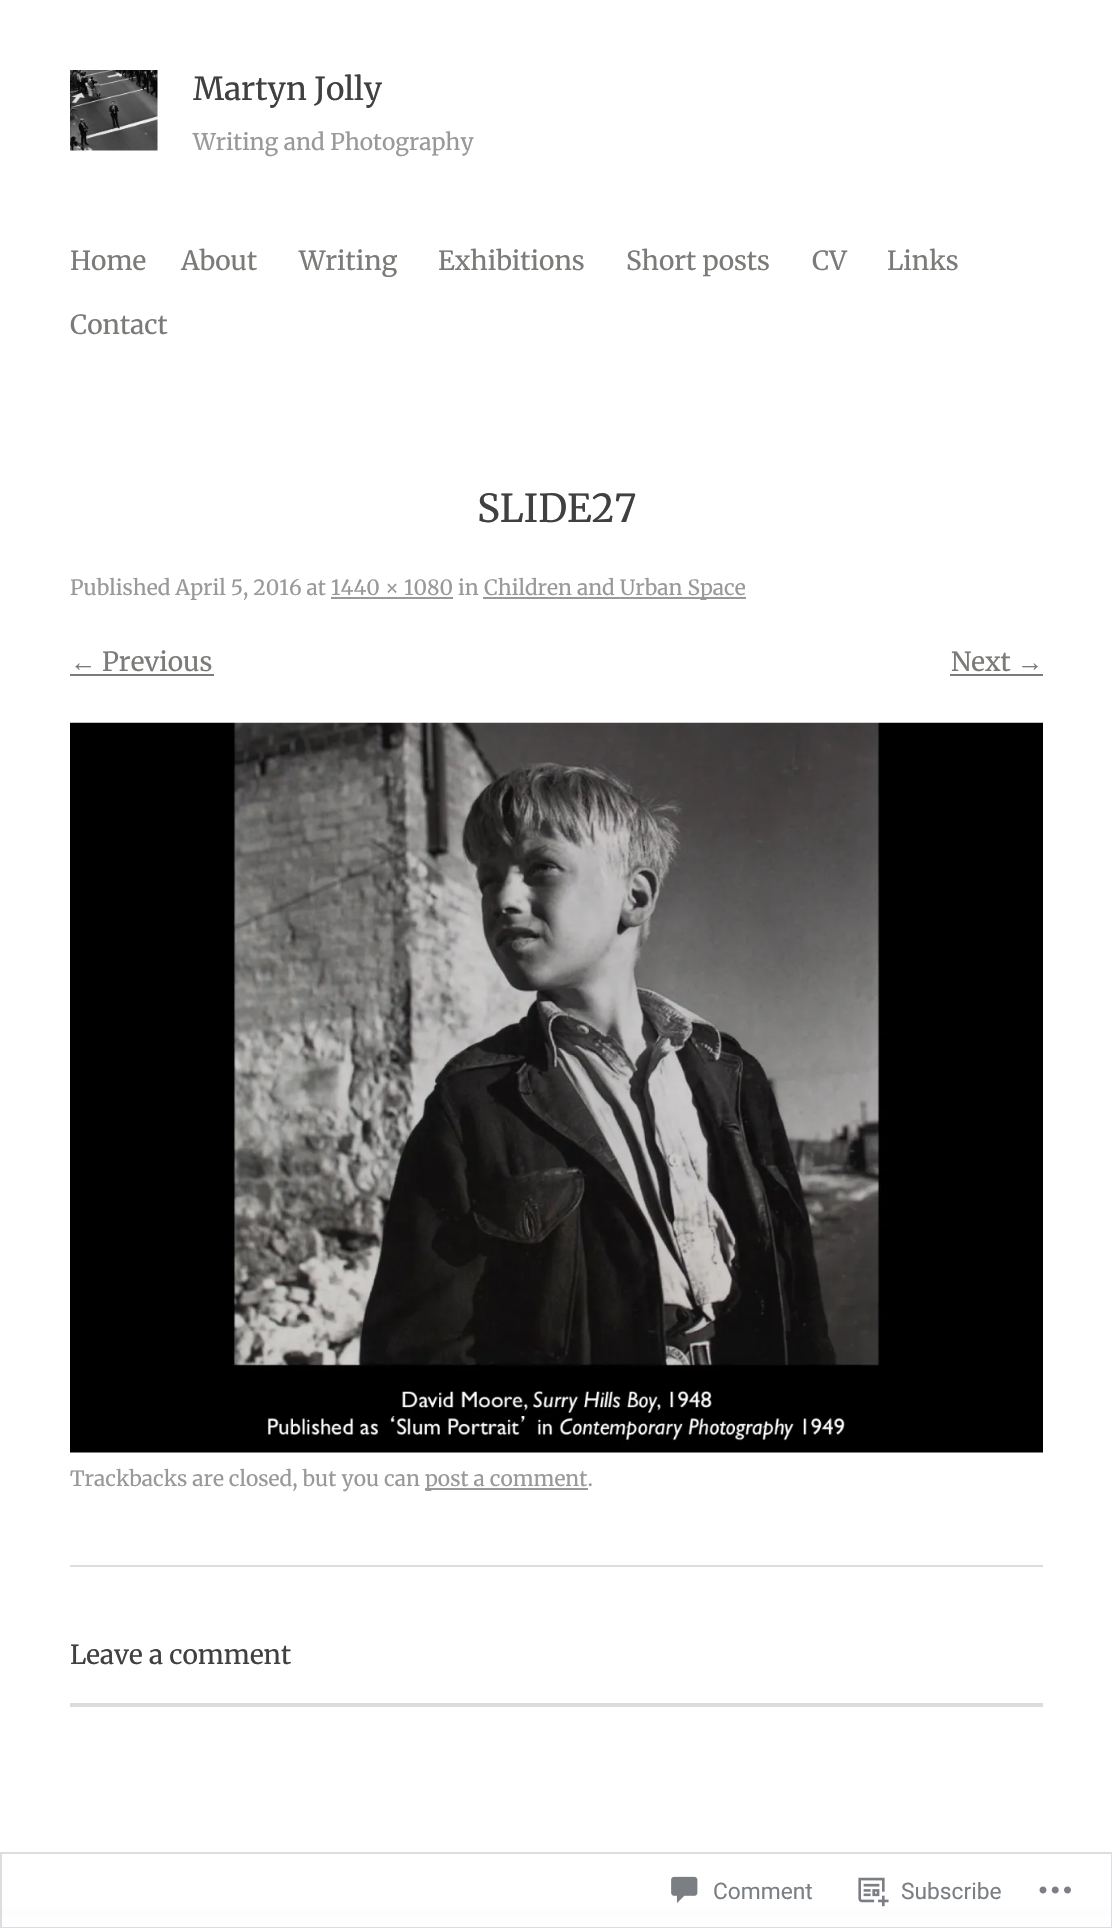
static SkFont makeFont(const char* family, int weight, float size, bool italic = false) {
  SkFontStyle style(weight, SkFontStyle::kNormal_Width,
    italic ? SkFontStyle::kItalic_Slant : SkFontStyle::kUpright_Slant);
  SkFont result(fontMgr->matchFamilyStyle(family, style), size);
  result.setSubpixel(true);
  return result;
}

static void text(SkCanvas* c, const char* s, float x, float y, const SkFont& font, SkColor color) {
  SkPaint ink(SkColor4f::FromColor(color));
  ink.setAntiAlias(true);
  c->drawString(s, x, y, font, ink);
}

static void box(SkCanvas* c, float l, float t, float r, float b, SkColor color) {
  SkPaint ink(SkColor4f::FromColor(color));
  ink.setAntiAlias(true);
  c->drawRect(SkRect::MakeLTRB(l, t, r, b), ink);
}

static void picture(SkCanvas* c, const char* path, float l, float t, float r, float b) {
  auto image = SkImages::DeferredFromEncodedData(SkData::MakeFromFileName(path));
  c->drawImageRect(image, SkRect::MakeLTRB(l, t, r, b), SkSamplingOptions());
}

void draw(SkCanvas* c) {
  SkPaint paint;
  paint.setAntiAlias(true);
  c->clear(0xffffffff);
  picture(c, "img_01.png", 2, 1862, 1111, 1927);
  picture(c, "img_02.png", 70, 70, 158, 151);
  SkFont face1 = makeFont("Merriweather", 400, 31.5f);
  text(c, "Martyn Jolly", 193, 100, face1, 0xff404040);
  SkFont face2 = makeFont("Merriweather", 400, 22.75f);
  text(c, "Writing and Photography", 193, 150, face2, 0xff999999);
  SkFont face3 = makeFont("Merriweather", 400, 26.25f);
  text(c, "Home", 70, 270, face3, 0xff7b7b79);
  text(c, "About", 181, 270, face3, 0xff7b7b79);
  text(c, "Writing", 299, 270, face3, 0xff7b7b79);
  text(c, "Exhibitions", 438, 270, face3, 0xff7b7b79);
  text(c, "Short posts", 626, 270, face3, 0xff7b7b79);
  text(c, "CV", 812, 270, face3, 0xff7b7b79);
  text(c, "Links", 887, 270, face3, 0xff7b7b79);
  text(c, "Contact", 70, 334, face3, 0xff7b7b79);
  box(c, 70, 1565, 1043, 1567, 0xffdddddd);
  SkFont face4 = makeFont("Merriweather", 400, 38.5f);
  text(c, "SLIDE27", 477, 522, face4, 0xff404040);
  SkFont face5 = makeFont("Merriweather", 400, 21);
  text(c, "Published April 5, 2016 at 1440 × 1080 in", 70, 595, face5, 0xff999999);
  box(c, 483, 597, 746, 599, 0xff999999);
  text(c, "Children and Urban Space", 484, 595, face5, 0xff999999);
  box(c, 331, 597, 453, 599, 0xff999999);
  SkFont face6 = makeFont("Liberation Serif", 400, 26.25f);
  text(c, "←", 70, 671, face6, 0xff7b7b79);
  box(c, 70, 674, 214, 676, 0xff7b7b79);
  text(c, "Previous", 102, 671, face3, 0xff7b7b79);
  text(c, "Next", 951, 671, face3, 0xff7b7b79);
  text(c, "→", 1017, 671, face6, 0xff7b7b79);
  box(c, 950, 674, 1043, 676, 0xff7b7b79);
  picture(c, "img_03.png", 70, 722, 1043, 1453);
  text(c, "Trackbacks are closed, but you can", 70, 1486, face5, 0xff999999);
  box(c, 425, 1488, 588, 1490, 0xff999999);
  text(c, "post a comment.", 425, 1486, face5, 0xff999999);
  text(c, "Leave a comment", 70, 1664, face3, 0xff404040);
  box(c, 70, 1703, 1043, 1707, 0xffdcdcde);
  box(c, 2, 1862, 1111, 1907, 0xfaffffff);
  paint.setStyle(SkPaint::kStroke_Style);
  paint.setStrokeWidth(2);
  paint.setColor(0xffdddddf);
  c->drawRect(SkRect::MakeLTRB(1, 1853, 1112, 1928), paint);
  picture(c, "img_04.png", 671, 1876, 698, 1903);
  SkFont face7 = makeFont("Roboto", 400, 22.75f);
  text(c, "Comment", 713, 1899, face7, 0xff7b7f84);
  picture(c, "img_05.png", 858, 1877, 889, 1907);
  text(c, "Subscribe", 901, 1899, face7, 0xff7b7f84);
  picture(c, "img_06.png", 1039, 1886, 1071, 1894);
}
